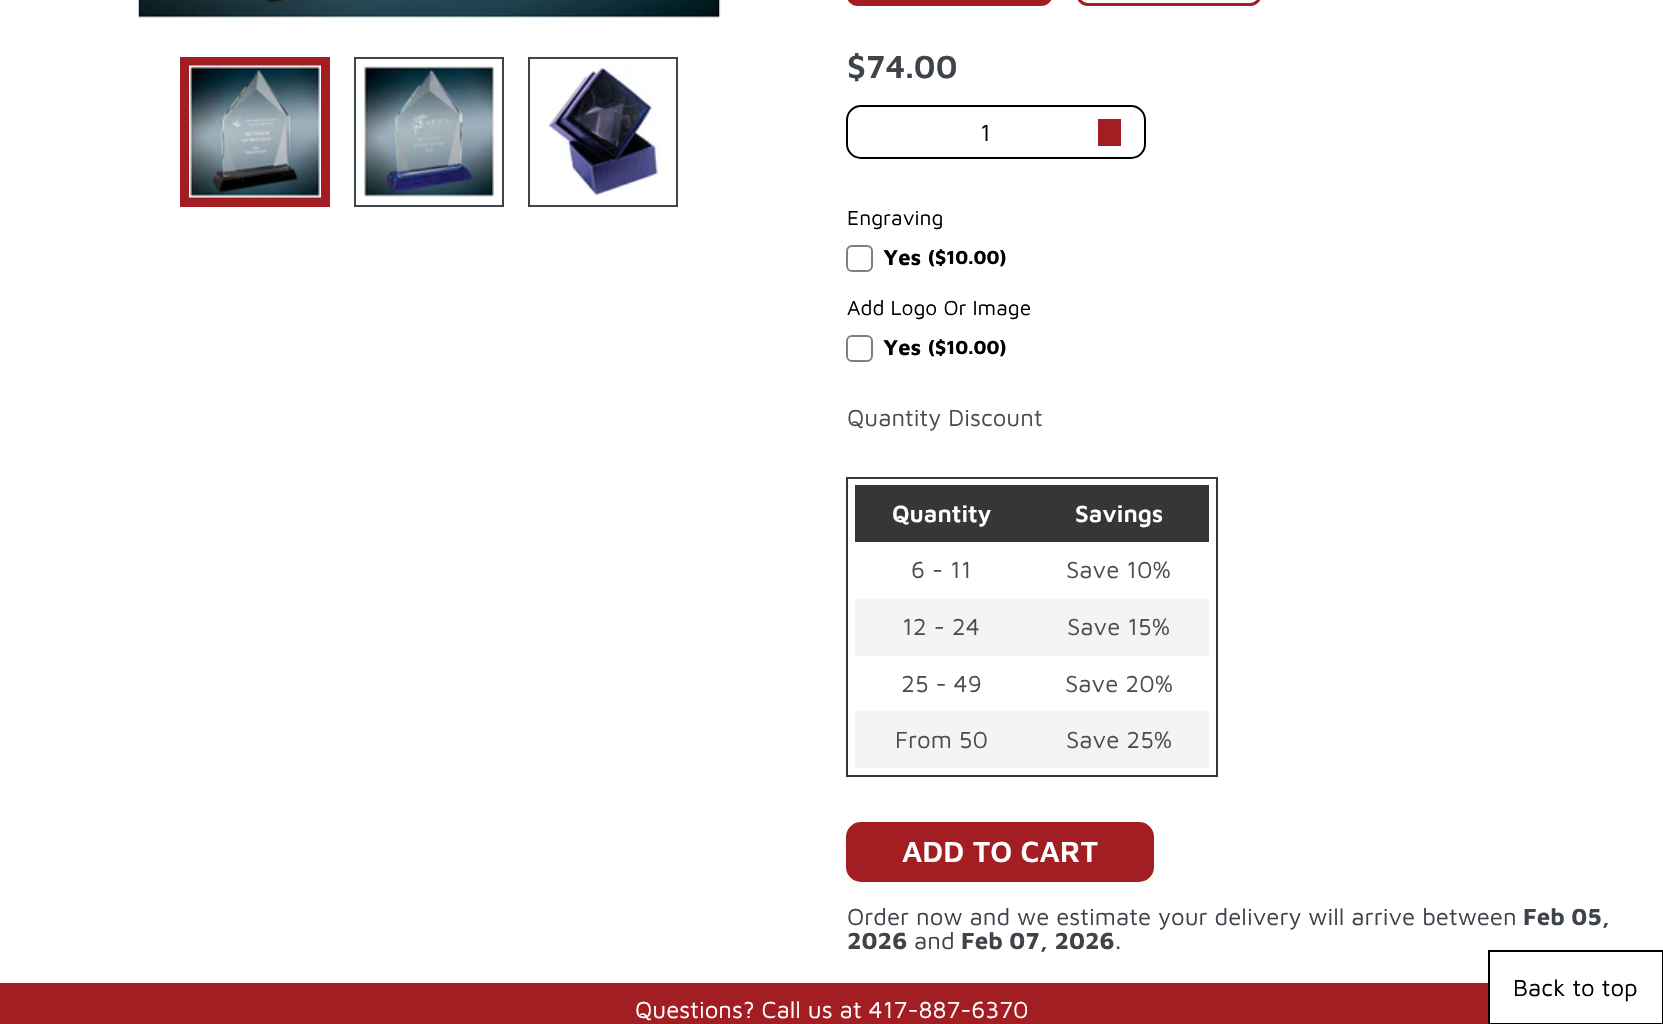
static SkFont makeFont(const char* family, int weight, float size, bool italic = false) {
  SkFontStyle style(weight, SkFontStyle::kNormal_Width,
    italic ? SkFontStyle::kItalic_Slant : SkFontStyle::kUpright_Slant);
  SkFont result(fontMgr->matchFamilyStyle(family, style), size);
  result.setSubpixel(true);
  return result;
}

static void text(SkCanvas* c, const char* s, float x, float y, const SkFont& font, SkColor color) {
  SkPaint ink(SkColor4f::FromColor(color));
  ink.setAntiAlias(true);
  c->drawString(s, x, y, font, ink);
}

static void box(SkCanvas* c, float l, float t, float r, float b, SkColor color) {
  SkPaint ink(SkColor4f::FromColor(color));
  ink.setAntiAlias(true);
  c->drawRect(SkRect::MakeLTRB(l, t, r, b), ink);
}

static void picture(SkCanvas* c, const char* path, float l, float t, float r, float b) {
  auto image = SkImages::DeferredFromEncodedData(SkData::MakeFromFileName(path));
  c->drawImageRect(image, SkRect::MakeLTRB(l, t, r, b), SkSamplingOptions());
}

void draw(SkCanvas* c) {
  SkPaint paint;
  paint.setAntiAlias(true);
  c->clear(0xffffffff);
  picture(c, "img_01.png", 137, 0, 721, 19);
  box(c, 180, 57, 330, 207, 0xffa21e23);
  picture(c, "img_02.png", 189, 65, 321, 198);
  paint.setStyle(SkPaint::kStroke_Style);
  paint.setStrokeWidth(2);
  paint.setColor(0xff3f444b);
  c->drawRect(SkRect::MakeLTRB(355, 58, 503, 206), paint);
  picture(c, "img_03.png", 363, 66, 495, 197);
  c->drawRect(SkRect::MakeLTRB(529, 58, 677, 206), paint);
  picture(c, "img_04.png", 548, 65, 666, 195);
  paint.setStyle(SkPaint::kFill_Style);
  paint.setColor(0xffa21e23);
  c->drawRoundRect(SkRect::MakeLTRB(847.5f, -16.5f, 1051.5f, 4.5f), 13.5f, 13.5f, paint);
  paint.setStyle(SkPaint::kStroke_Style);
  paint.setStrokeWidth(3);
  c->drawRoundRect(SkRect::MakeLTRB(847.5f, -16.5f, 1051.5f, 4.5f), 13.5f, 13.5f, paint);
  c->drawRoundRect(SkRect::MakeLTRB(1077.5f, -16.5f, 1260.5f, 4.5f), 13.5f, 13.5f, paint);
  SkFont face1 = makeFont("Maven Pro", 600, 33);
  text(c, "$74.00", 847, 78, face1, 0xff3f444b);
  paint.setStrokeWidth(2);
  paint.setColor(0xff000000);
  c->drawRoundRect(SkRect::MakeLTRB(847, 106, 1145, 158), 14, 14, paint);
  SkFont face2 = makeFont("Maven Pro", 400, 24);
  text(c, "1", 980, 141, face2, 0xff000000);
  box(c, 1098, 119, 1121, 146, 0xffa21e23);
  SkFont face3 = makeFont("Maven Pro", 400, 21);
  text(c, "Engraving", 847, 225, face3, 0xff000000);
  paint.setColor(0xff808080);
  c->drawRoundRect(SkRect::MakeLTRB(847, 246, 872, 271), 5, 5, paint);
  SkFont face4 = makeFont("Maven Pro", 700, 22);
  text(c, "Yes", 883, 265, face4, 0xff000000);
  SkFont face5 = makeFont("Maven Pro", 700, 19.5f);
  text(c, "($10.00)", 928, 264, face5, 0xff000000);
  text(c, "Add Logo Or Image", 847, 315, face3, 0xff000000);
  c->drawRoundRect(SkRect::MakeLTRB(847, 336, 872, 361), 5, 5, paint);
  text(c, "Yes", 883, 355, face4, 0xff000000);
  text(c, "($10.00)", 928, 354, face5, 0xff000000);
  text(c, "Quantity Discount", 847, 426, face2, 0xff4d4d4d);
  paint.setColor(0xff363636);
  c->drawRect(SkRect::MakeLTRB(847, 478, 1217, 776), paint);
  box(c, 855, 485, 1209, 542, 0xff363636);
  SkFont face6 = makeFont("Maven Pro", 600, 24);
  text(c, "Quantity", 892, 522, face6, 0xffffffff);
  text(c, "Savings", 1075, 522, face6, 0xffffffff);
  text(c, "6 - 11", 911, 578, face2, 0xff4d4d4d);
  text(c, "Save 10%", 1066, 578, face2, 0xff4d4d4d);
  box(c, 855, 599, 1209, 656, 0xfff4f4f4);
  text(c, "12 - 24", 902, 635, face2, 0xff4d4d4d);
  text(c, "Save 15%", 1067, 635, face2, 0xff4d4d4d);
  text(c, "25 - 49", 901, 692, face2, 0xff4d4d4d);
  text(c, "Save 20%", 1065, 692, face2, 0xff4d4d4d);
  box(c, 855, 711, 1209, 768, 0xfff4f4f4);
  text(c, "From 50", 895, 748, face2, 0xff4d4d4d);
  text(c, "Save 25%", 1066, 748, face2, 0xff4d4d4d);
  paint.setStyle(SkPaint::kFill_Style);
  paint.setColor(0xffa21e23);
  c->drawRoundRect(SkRect::MakeLTRB(847.5f, 823.5f, 1152.5f, 880.5f), 13.5f, 13.5f, paint);
  paint.setStyle(SkPaint::kStroke_Style);
  paint.setStrokeWidth(3);
  c->drawRoundRect(SkRect::MakeLTRB(847.5f, 823.5f, 1152.5f, 880.5f), 13.5f, 13.5f, paint);
  SkFont face7 = makeFont("Maven Pro", 600, 30);
  text(c, "ADD TO CART", 902, 862, face7, 0xffffffff);
  text(c, "Order now and we estimate your delivery will arrive between", 847, 925, face2, 0xff3f444b);
  SkFont face8 = makeFont("Maven Pro", 700, 24);
  text(c, "Feb 05,", 1523, 925, face8, 0xff3f444b);
  text(c, "2026", 847, 949, face8, 0xff3f444b);
  text(c, "and", 914, 949, face2, 0xff3f444b);
  text(c, "Feb 07, 2026", 961, 949, face8, 0xff3f444b);
  text(c, ".", 1115, 949, face2, 0xff3f444b);
  paint.setStrokeWidth(2);
  paint.setColor(0xff000000);
  c->drawRect(SkRect::MakeLTRB(1489, 951, 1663, 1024), paint);
  text(c, "Back to top", 1513, 996, face2, 0xff000000);
  box(c, 0, 983, 1488, 1024, 0xffa21e23);
  text(c, "Questions? Call us at 417-887-6370", 635, 1018, face2, 0xffffffff);
}
